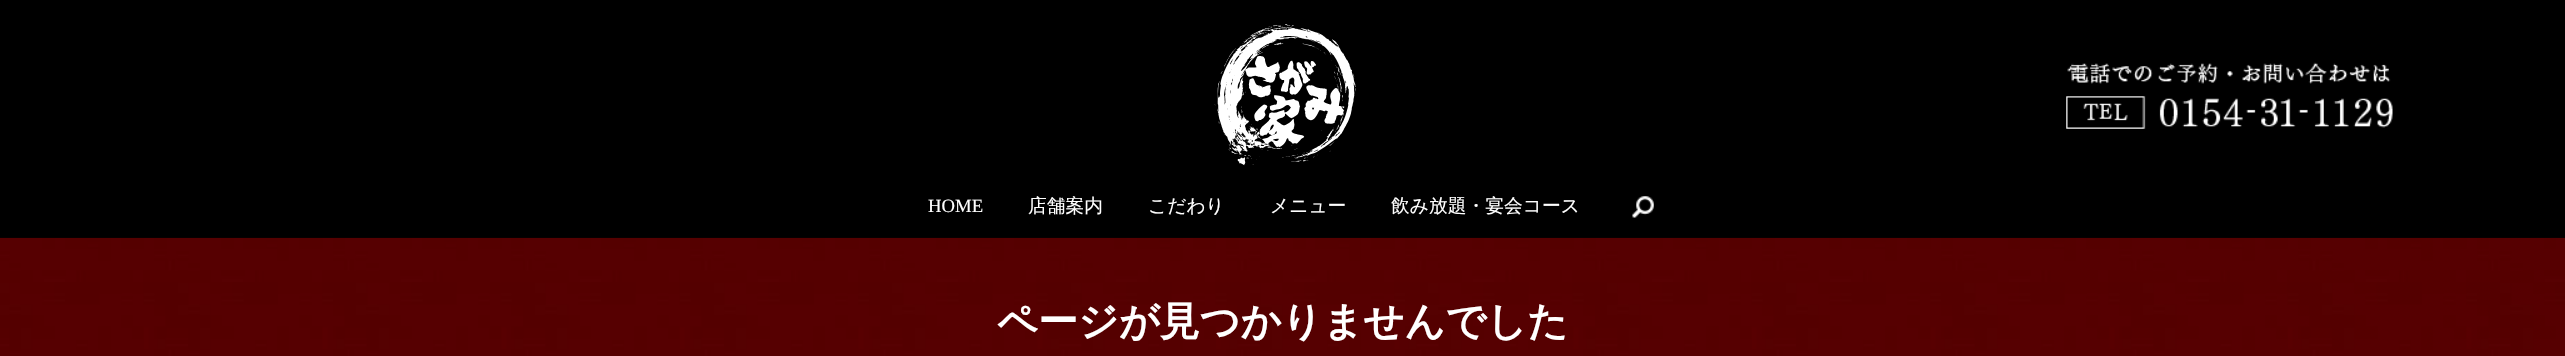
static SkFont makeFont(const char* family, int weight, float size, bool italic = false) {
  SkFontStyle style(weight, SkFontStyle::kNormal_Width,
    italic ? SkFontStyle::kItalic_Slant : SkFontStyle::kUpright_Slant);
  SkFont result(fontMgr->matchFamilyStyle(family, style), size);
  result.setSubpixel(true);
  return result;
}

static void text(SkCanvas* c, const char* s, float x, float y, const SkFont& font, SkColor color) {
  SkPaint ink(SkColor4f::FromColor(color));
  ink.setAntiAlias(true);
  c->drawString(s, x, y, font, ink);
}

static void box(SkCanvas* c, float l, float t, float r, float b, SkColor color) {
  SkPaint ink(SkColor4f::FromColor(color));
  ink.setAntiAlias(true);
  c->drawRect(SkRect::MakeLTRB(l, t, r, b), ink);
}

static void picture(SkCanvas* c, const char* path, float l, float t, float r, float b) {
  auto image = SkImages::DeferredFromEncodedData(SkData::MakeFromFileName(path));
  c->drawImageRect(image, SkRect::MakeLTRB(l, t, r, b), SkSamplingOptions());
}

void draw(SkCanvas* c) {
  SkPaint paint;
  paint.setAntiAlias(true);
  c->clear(0xff000000);
  picture(c, "img_04.png", 0, 237, 2565, 356);
  box(c, 0, 237, 2565, 238, 0xb3000000);
  picture(c, "img_01.png", 1214, 24, 1356, 166);
  picture(c, "img_02.png", 2066, 62, 2393, 129);
  SkFont face1 = makeFont("Liberation Serif", 400, 18.75f);
  text(c, "HOME", 928, 212, face1, 0xffffffff);
  SkFont face2 = makeFont("WenQuanYi Zen Hei", 500, 18.75f);
  text(c, "店舗案内", 1028, 212, face2, 0xffffffff);
  text(c, "こだわり", 1148, 212, face2, 0xffffffff);
  text(c, "メニュー", 1270, 212, face2, 0xffffffff);
  text(c, "飲み放題・宴会コース", 1391, 212, face2, 0xffffffff);
  picture(c, "img_03.png", 1632, 196, 1654, 218);
  SkFont face3 = makeFont("WenQuanYi Zen Hei", 700, 40);
  text(c, "ページが見つかりませんでした", 997, 335, face3, 0xffffffff);
}
